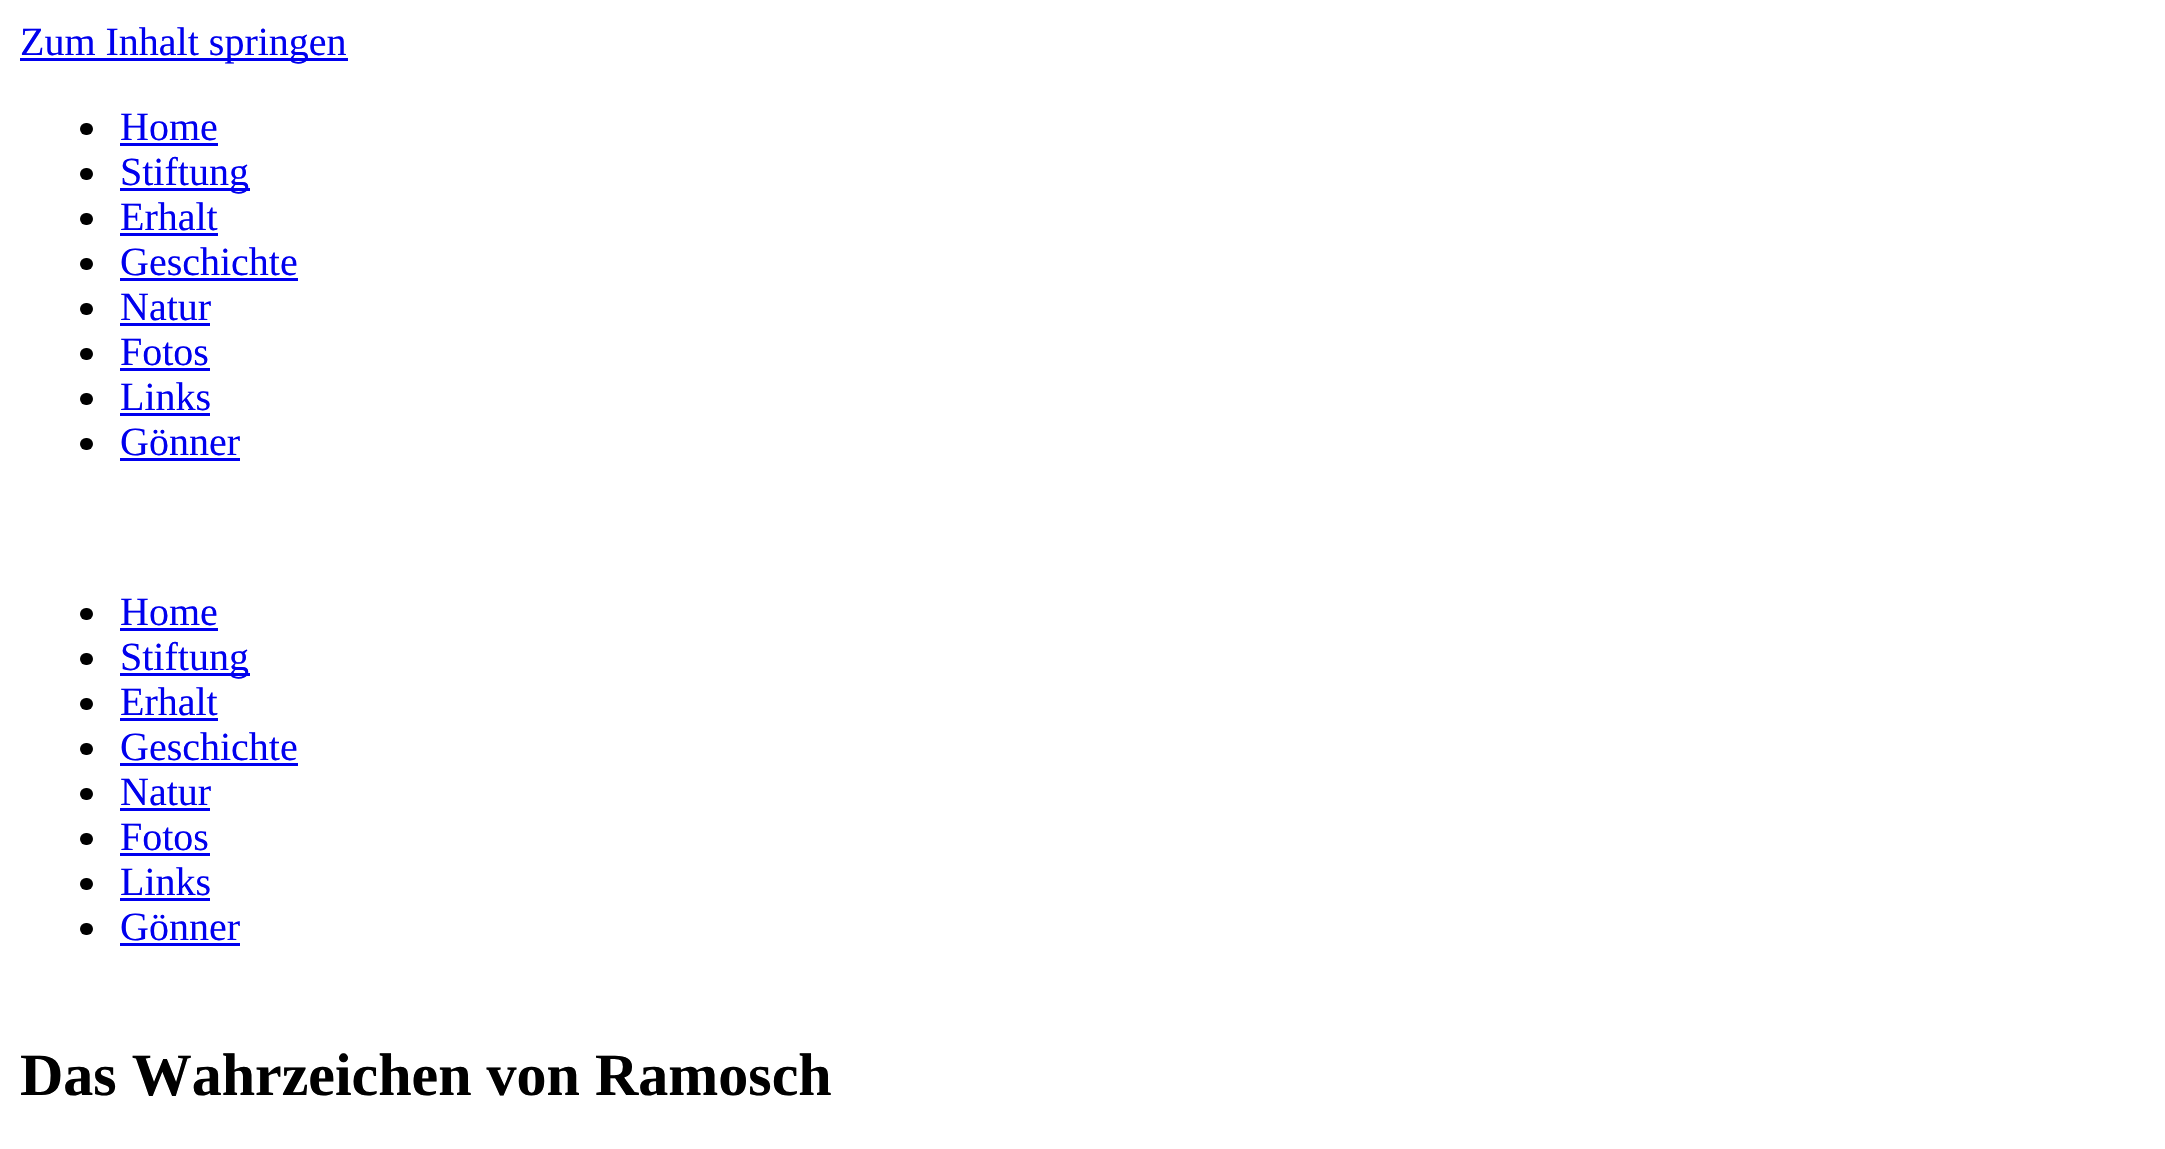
static SkFont makeFont(const char* family, int weight, float size, bool italic = false) {
  SkFontStyle style(weight, SkFontStyle::kNormal_Width,
    italic ? SkFontStyle::kItalic_Slant : SkFontStyle::kUpright_Slant);
  SkFont result(fontMgr->matchFamilyStyle(family, style), size);
  result.setSubpixel(true);
  return result;
}

static void text(SkCanvas* c, const char* s, float x, float y, const SkFont& font, SkColor color) {
  SkPaint ink(SkColor4f::FromColor(color));
  ink.setAntiAlias(true);
  c->drawString(s, x, y, font, ink);
}

static void box(SkCanvas* c, float l, float t, float r, float b, SkColor color) {
  SkPaint ink(SkColor4f::FromColor(color));
  ink.setAntiAlias(true);
  c->drawRect(SkRect::MakeLTRB(l, t, r, b), ink);
}

static void roundBox(SkCanvas* c, float l, float t, float r, float b, float radius, SkColor color) {
  SkPaint ink(SkColor4f::FromColor(color));
  ink.setAntiAlias(true);
  c->drawRoundRect(SkRect::MakeLTRB(l, t, r, b), radius, radius, ink);
}

void draw(SkCanvas* c) {
  SkPaint paint;
  paint.setAntiAlias(true);
  c->clear(0xffffffff);
  box(c, 20, 58, 348, 61, 0xff0000ee);
  SkFont face1 = makeFont("Liberation Serif", 400, 40);
  text(c, "Zum Inhalt springen", 20, 55, face1, 0xff0000ee);
  roundBox(c, 80, 123, 93, 135, 6, 0xff000000);
  text(c, "Home", 120, 140, face1, 0xff0000ee);
  box(c, 120, 143, 218, 146, 0xff0000ee);
  roundBox(c, 80, 168, 93, 180, 6, 0xff000000);
  box(c, 120, 188, 250, 191, 0xff0000ee);
  text(c, "Stiftung", 120, 185, face1, 0xff0000ee);
  roundBox(c, 80, 213, 93, 225, 6, 0xff000000);
  text(c, "Erhalt", 120, 230, face1, 0xff0000ee);
  box(c, 120, 233, 218, 236, 0xff0000ee);
  roundBox(c, 80, 258, 93, 270, 6, 0xff000000);
  text(c, "Geschichte", 120, 275, face1, 0xff0000ee);
  box(c, 120, 278, 298, 281, 0xff0000ee);
  roundBox(c, 80, 303, 93, 315, 6, 0xff000000);
  text(c, "Natur", 120, 320, face1, 0xff0000ee);
  box(c, 120, 323, 210, 326, 0xff0000ee);
  roundBox(c, 80, 348, 93, 360, 6, 0xff000000);
  text(c, "Fotos", 120, 365, face1, 0xff0000ee);
  box(c, 120, 368, 210, 371, 0xff0000ee);
  roundBox(c, 80, 393, 93, 405, 6, 0xff000000);
  text(c, "Links", 120, 410, face1, 0xff0000ee);
  box(c, 120, 413, 210, 416, 0xff0000ee);
  roundBox(c, 80, 438, 93, 450, 6, 0xff000000);
  text(c, "Gönner", 120, 455, face1, 0xff0000ee);
  box(c, 120, 458, 240, 461, 0xff0000ee);
  roundBox(c, 80, 608, 93, 620, 6, 0xff000000);
  text(c, "Home", 120, 625, face1, 0xff0000ee);
  box(c, 120, 628, 218, 631, 0xff0000ee);
  roundBox(c, 80, 653, 93, 665, 6, 0xff000000);
  box(c, 120, 673, 250, 676, 0xff0000ee);
  text(c, "Stiftung", 120, 670, face1, 0xff0000ee);
  roundBox(c, 80, 698, 93, 710, 6, 0xff000000);
  text(c, "Erhalt", 120, 715, face1, 0xff0000ee);
  box(c, 120, 718, 218, 721, 0xff0000ee);
  roundBox(c, 80, 743, 93, 755, 6, 0xff000000);
  text(c, "Geschichte", 120, 760, face1, 0xff0000ee);
  box(c, 120, 763, 298, 766, 0xff0000ee);
  roundBox(c, 80, 788, 93, 800, 6, 0xff000000);
  text(c, "Natur", 120, 805, face1, 0xff0000ee);
  box(c, 120, 808, 210, 811, 0xff0000ee);
  roundBox(c, 80, 833, 93, 845, 6, 0xff000000);
  text(c, "Fotos", 120, 850, face1, 0xff0000ee);
  box(c, 120, 853, 210, 856, 0xff0000ee);
  roundBox(c, 80, 878, 93, 890, 6, 0xff000000);
  text(c, "Links", 120, 895, face1, 0xff0000ee);
  box(c, 120, 898, 210, 901, 0xff0000ee);
  roundBox(c, 80, 923, 93, 935, 6, 0xff000000);
  text(c, "Gönner", 120, 940, face1, 0xff0000ee);
  box(c, 120, 943, 240, 946, 0xff0000ee);
  SkFont face2 = makeFont("Liberation Serif", 700, 60);
  text(c, "Das Wahrzeichen von Ramosch", 20, 1095, face2, 0xff000000);
}
